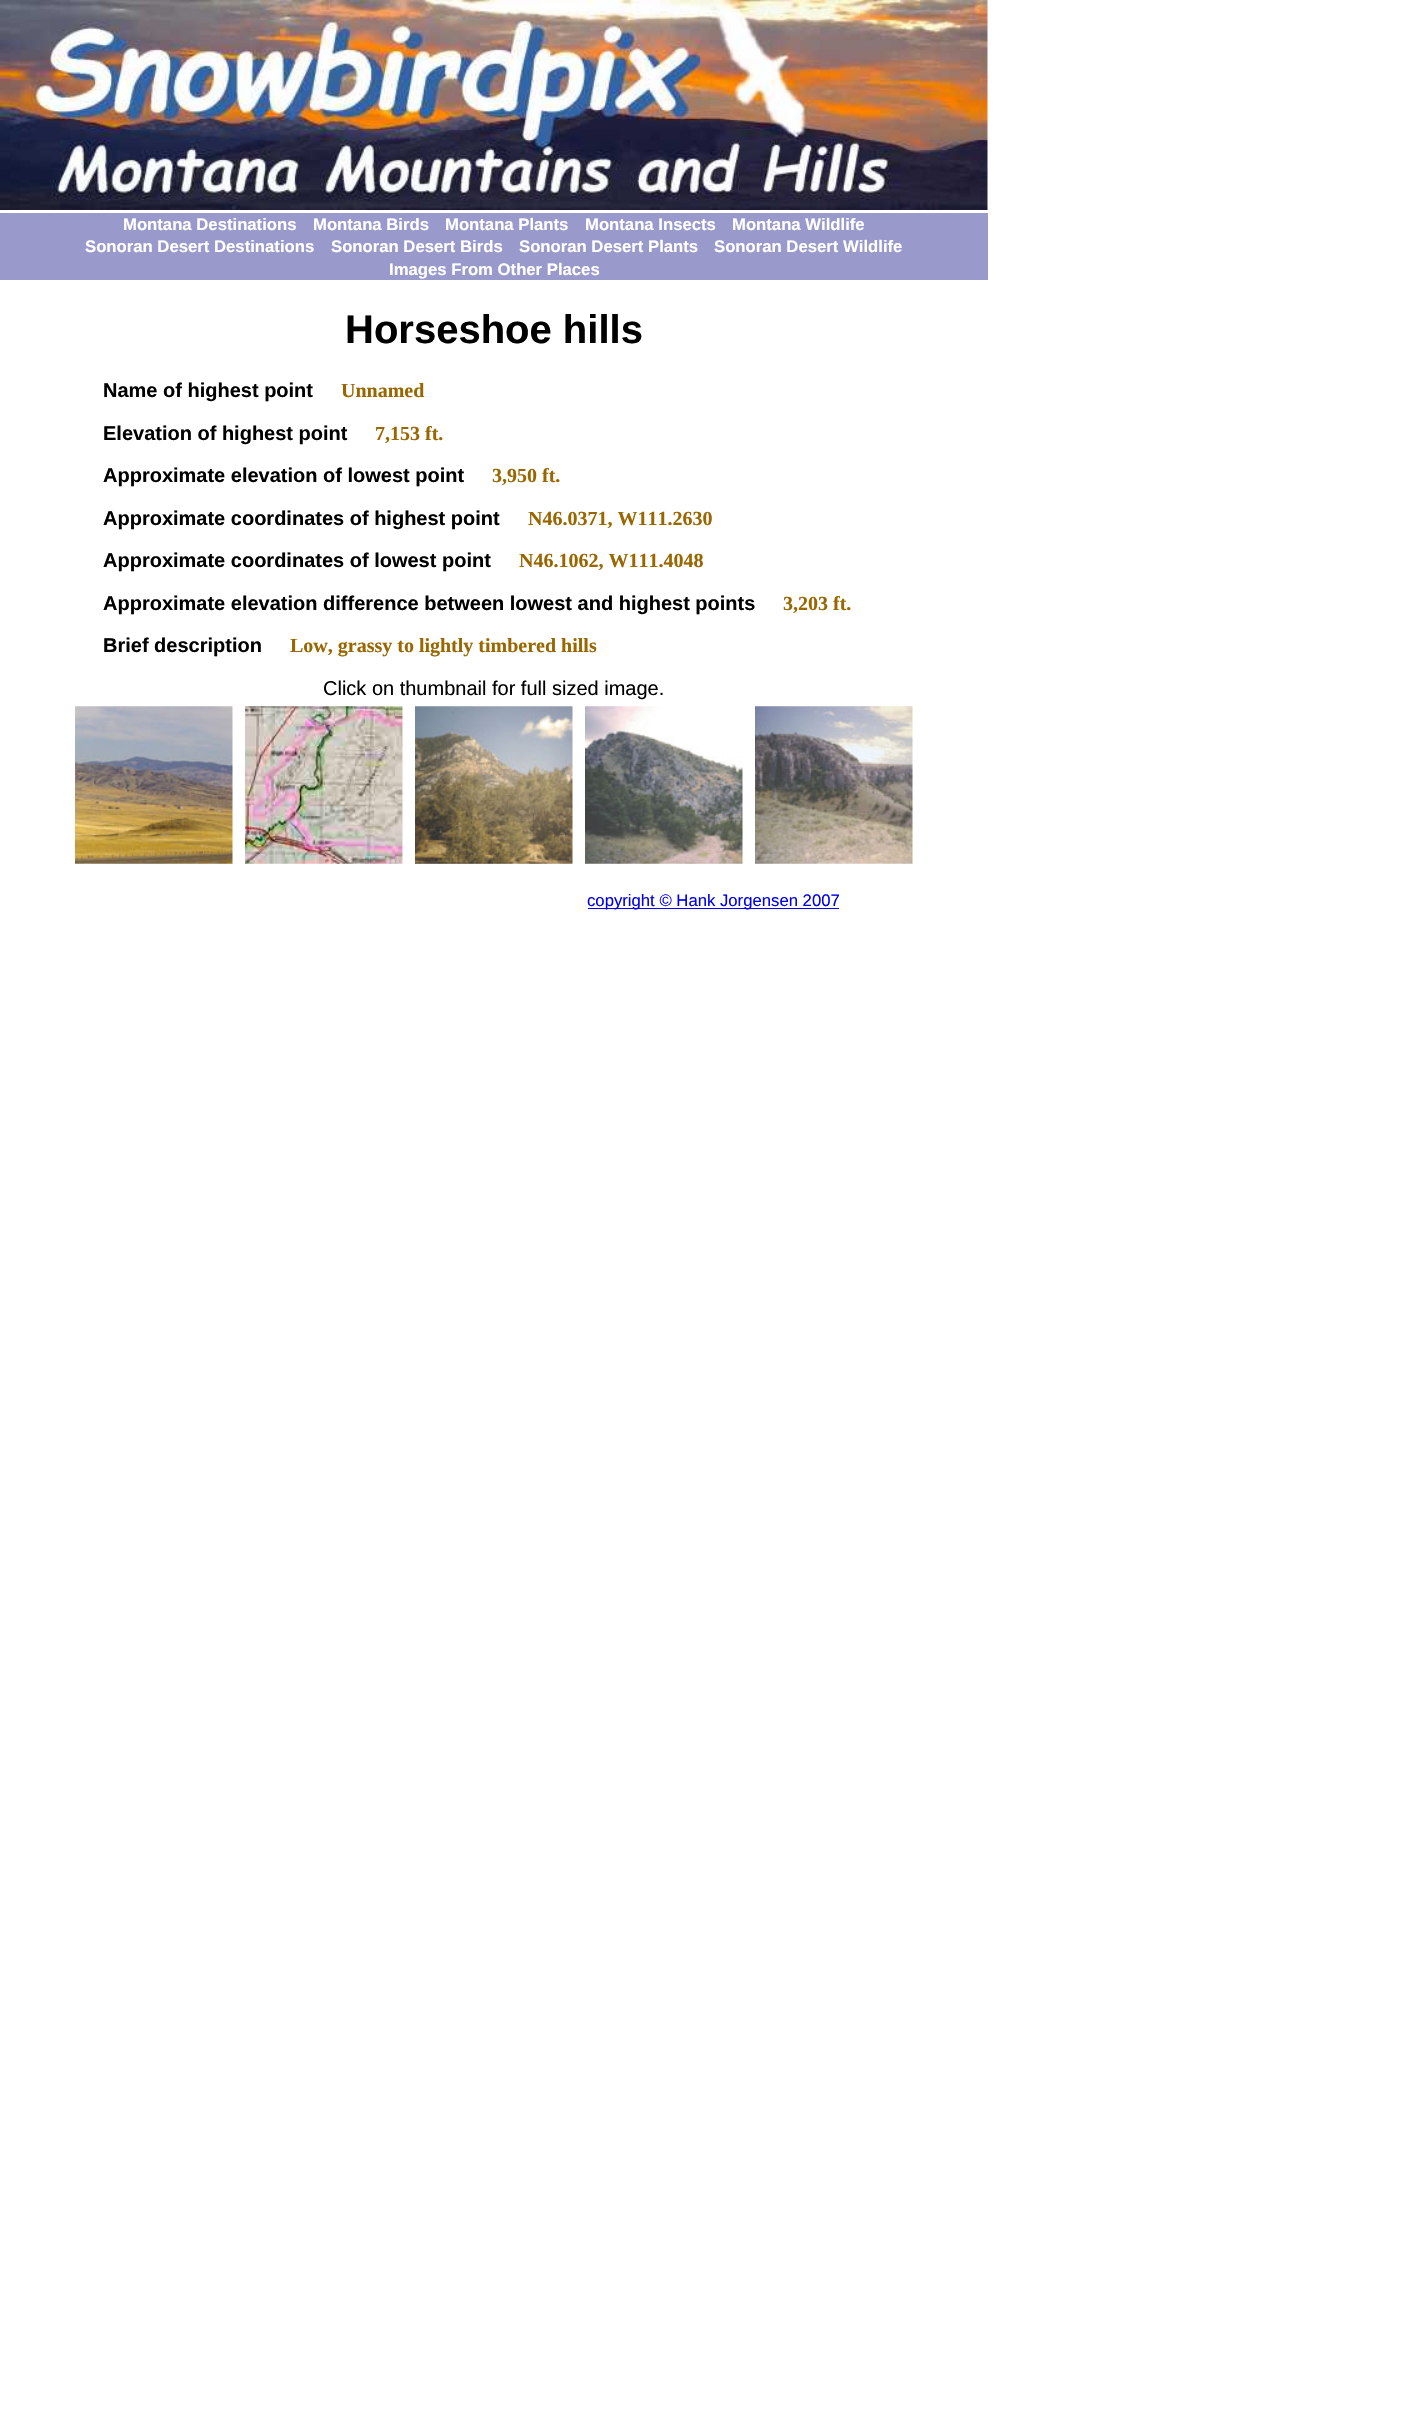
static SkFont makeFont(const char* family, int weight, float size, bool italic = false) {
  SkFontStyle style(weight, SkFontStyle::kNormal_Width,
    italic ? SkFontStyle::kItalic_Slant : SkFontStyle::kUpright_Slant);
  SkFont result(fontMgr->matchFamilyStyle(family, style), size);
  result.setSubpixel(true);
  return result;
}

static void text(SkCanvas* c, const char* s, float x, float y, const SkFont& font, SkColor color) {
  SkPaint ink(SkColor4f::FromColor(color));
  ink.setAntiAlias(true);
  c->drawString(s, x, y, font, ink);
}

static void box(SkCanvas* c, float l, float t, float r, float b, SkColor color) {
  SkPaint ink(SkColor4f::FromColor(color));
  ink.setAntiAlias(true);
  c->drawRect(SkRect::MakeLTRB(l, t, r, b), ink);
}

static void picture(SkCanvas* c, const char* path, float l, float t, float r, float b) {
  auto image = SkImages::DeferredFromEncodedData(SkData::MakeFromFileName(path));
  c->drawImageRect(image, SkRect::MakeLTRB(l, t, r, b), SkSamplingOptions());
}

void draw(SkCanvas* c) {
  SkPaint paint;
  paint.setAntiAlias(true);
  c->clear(0xffffffff);
  picture(c, "img_01.png", 0, 0, 988, 210);
  box(c, 0, 213, 988, 280, 0xff9999cc);
  SkFont face1 = makeFont("Liberation Sans", 700, 16.7f);
  text(c, "Montana Destinations", 123, 230, face1, 0xffffffff);
  text(c, "Montana Birds", 313, 230, face1, 0xffffffff);
  text(c, "Montana Plants", 445, 230, face1, 0xffffffff);
  text(c, "Montana Insects", 585, 230, face1, 0xffffffff);
  text(c, "Montana Wildlife", 732, 230, face1, 0xffffffff);
  text(c, "Sonoran Desert Destinations", 85, 252, face1, 0xffffffff);
  text(c, "Sonoran Desert Birds", 331, 252, face1, 0xffffffff);
  text(c, "Sonoran Desert Plants", 519, 252, face1, 0xffffffff);
  text(c, "Sonoran Desert Wildlife", 714, 252, face1, 0xffffffff);
  text(c, "Images From Other Places", 389, 275, face1, 0xffffffff);
  SkFont face2 = makeFont("Liberation Sans", 700, 40);
  text(c, "Horseshoe hills", 345, 343, face2, 0xff000000);
  SkFont face3 = makeFont("Liberation Sans", 700, 20);
  text(c, "Name of highest point", 103, 397, face3, 0xff000000);
  SkFont face4 = makeFont("Liberation Serif", 700, 20);
  text(c, "Unnamed", 341, 397, face4, 0xff996600);
  text(c, "Elevation of highest point", 103, 440, face3, 0xff000000);
  text(c, "7,153 ft.", 375, 440, face4, 0xff996600);
  text(c, "Approximate elevation of lowest point", 103, 482, face3, 0xff000000);
  text(c, "3,950 ft.", 492, 482, face4, 0xff996600);
  text(c, "Approximate coordinates of highest point", 103, 525, face3, 0xff000000);
  text(c, "N46.0371, W111.2630", 528, 525, face4, 0xff996600);
  text(c, "Approximate coordinates of lowest point", 103, 567, face3, 0xff000000);
  text(c, "N46.1062, W111.4048", 519, 567, face4, 0xff996600);
  text(c, "Approximate elevation difference between lowest and highest points", 103, 610, face3, 0xff000000);
  text(c, "3,203 ft.", 783, 610, face4, 0xff996600);
  text(c, "Brief description", 103, 652, face3, 0xff000000);
  text(c, "Low, grassy to lightly timbered hills", 290, 652, face4, 0xff996600);
  SkFont face5 = makeFont("Liberation Sans", 400, 20);
  text(c, "Click on thumbnail for full sized image.", 323, 695, face5, 0xff000000);
  picture(c, "img_02.png", 75, 706, 233, 864);
  picture(c, "img_03.png", 245, 706, 403, 864);
  picture(c, "img_04.png", 415, 706, 573, 864);
  picture(c, "img_05.png", 585, 706, 743, 864);
  picture(c, "img_06.png", 755, 706, 913, 864);
  box(c, 588, 908, 839, 909, 0xff0000ee);
  SkFont face6 = makeFont("Liberation Sans", 400, 16.7f);
  text(c, "copyright © Hank Jorgensen 2007", 587, 906, face6, 0xff0000ee);
}
